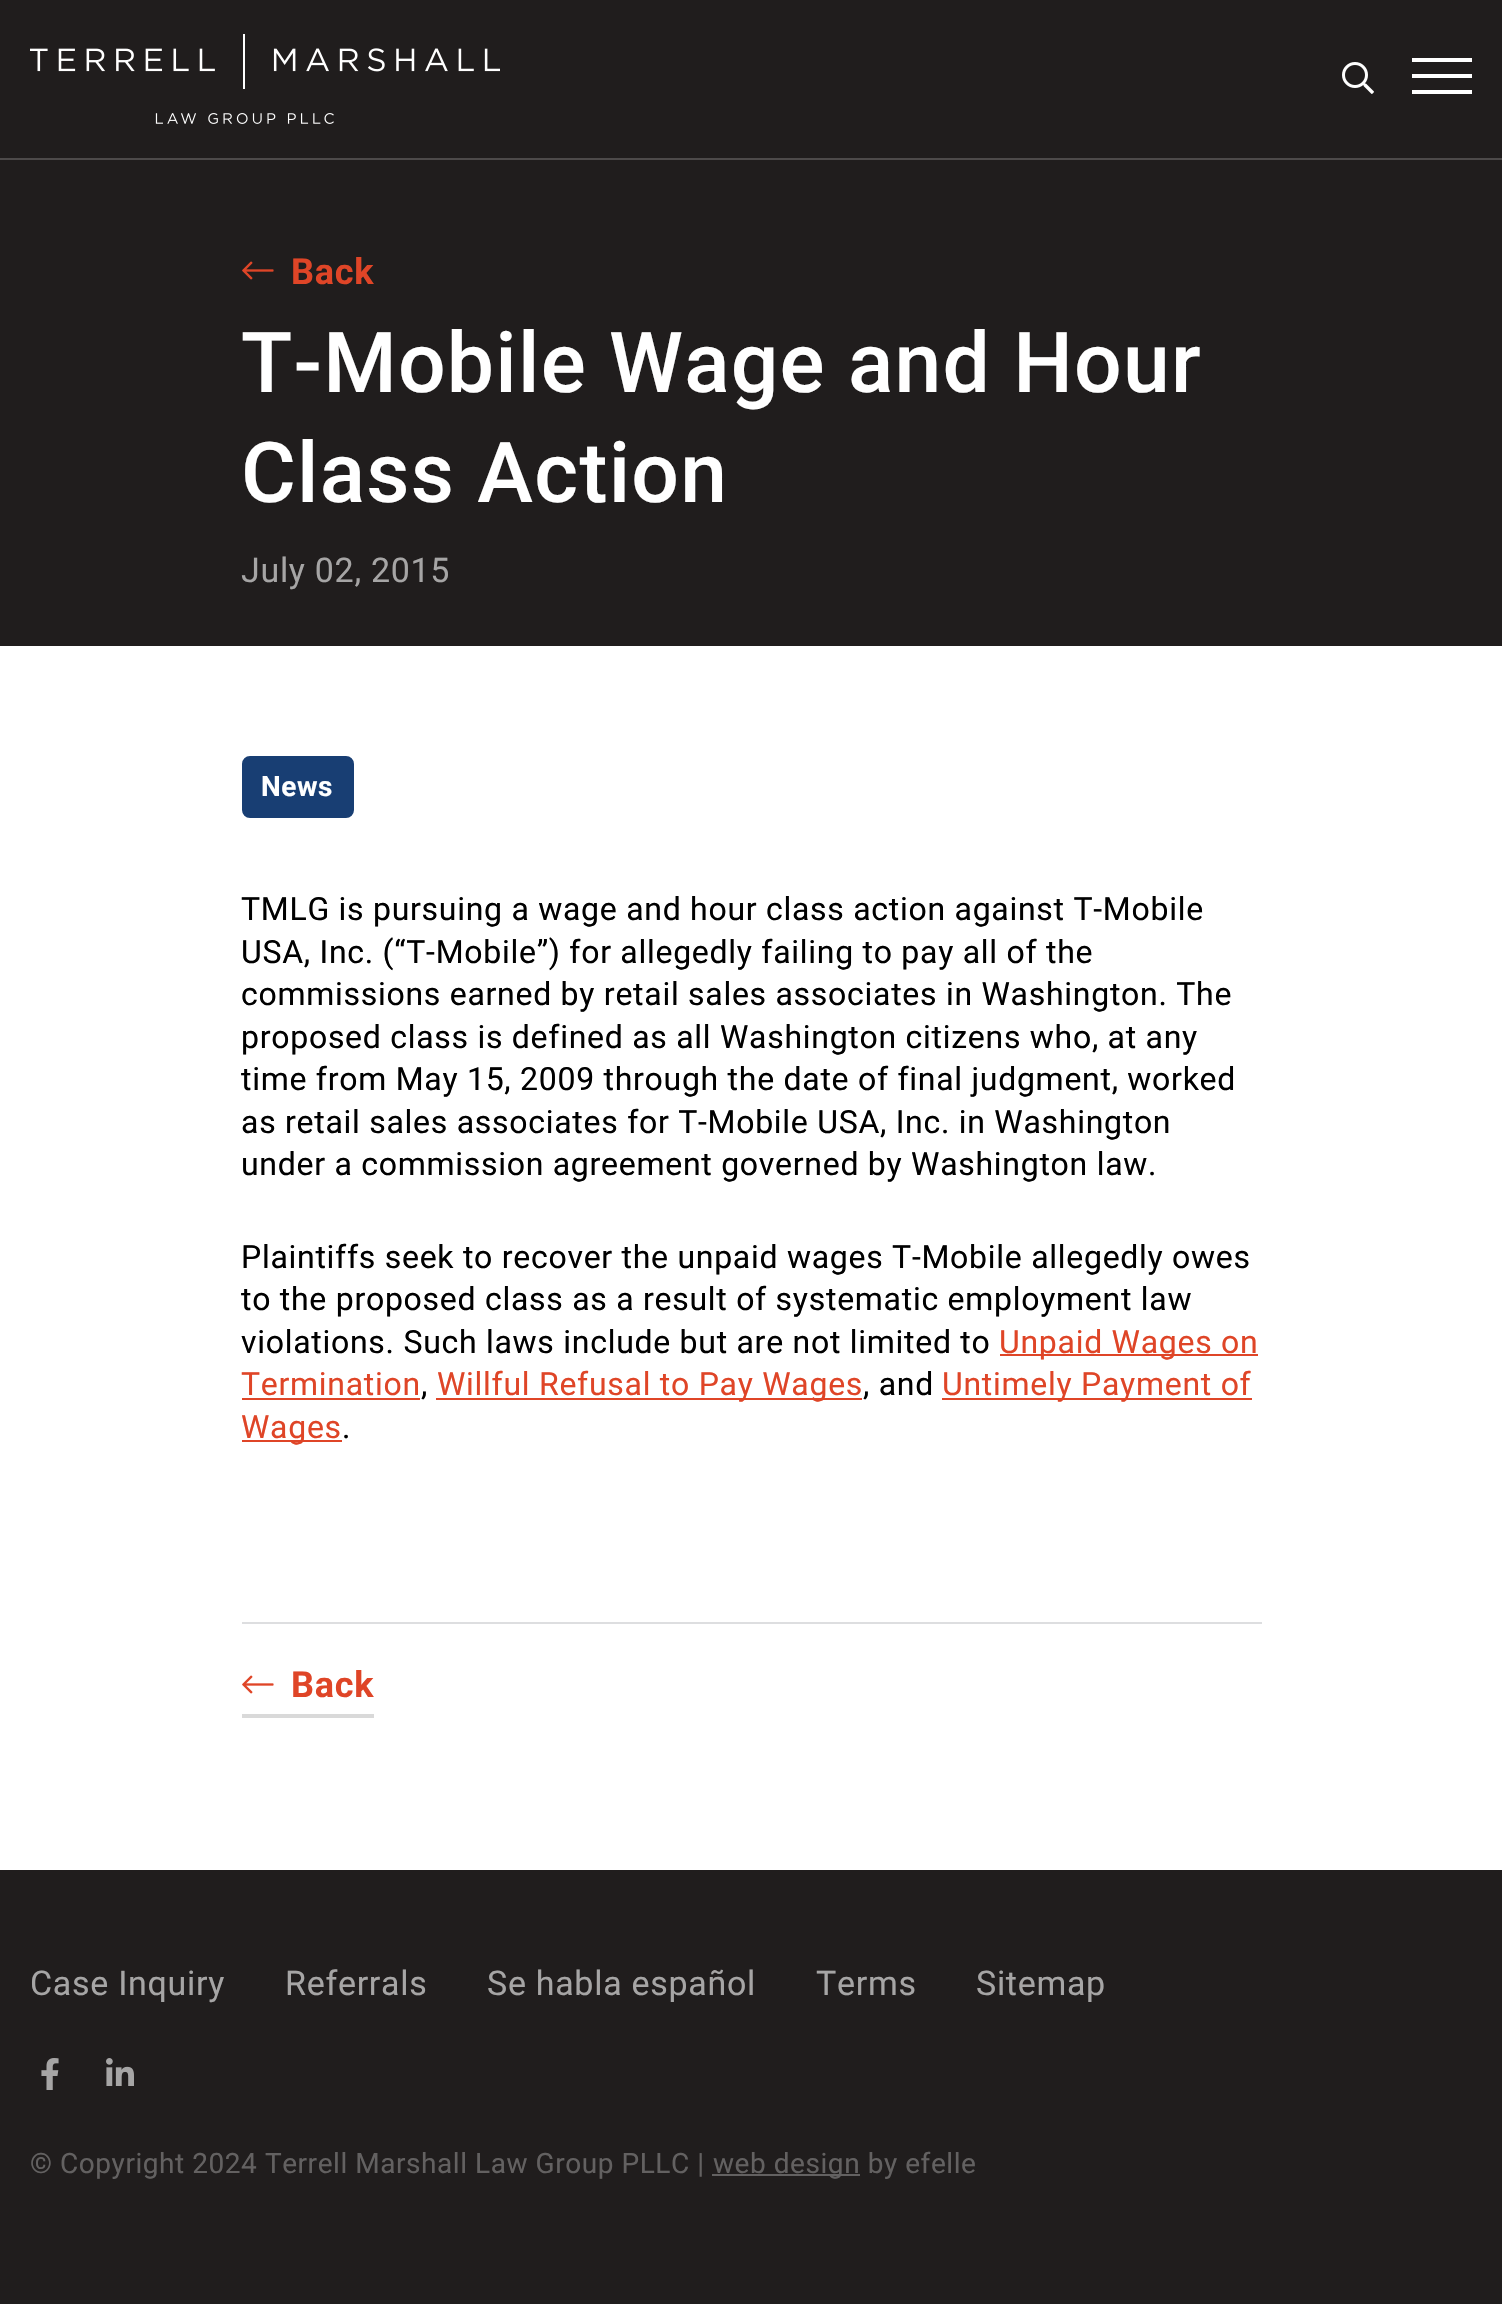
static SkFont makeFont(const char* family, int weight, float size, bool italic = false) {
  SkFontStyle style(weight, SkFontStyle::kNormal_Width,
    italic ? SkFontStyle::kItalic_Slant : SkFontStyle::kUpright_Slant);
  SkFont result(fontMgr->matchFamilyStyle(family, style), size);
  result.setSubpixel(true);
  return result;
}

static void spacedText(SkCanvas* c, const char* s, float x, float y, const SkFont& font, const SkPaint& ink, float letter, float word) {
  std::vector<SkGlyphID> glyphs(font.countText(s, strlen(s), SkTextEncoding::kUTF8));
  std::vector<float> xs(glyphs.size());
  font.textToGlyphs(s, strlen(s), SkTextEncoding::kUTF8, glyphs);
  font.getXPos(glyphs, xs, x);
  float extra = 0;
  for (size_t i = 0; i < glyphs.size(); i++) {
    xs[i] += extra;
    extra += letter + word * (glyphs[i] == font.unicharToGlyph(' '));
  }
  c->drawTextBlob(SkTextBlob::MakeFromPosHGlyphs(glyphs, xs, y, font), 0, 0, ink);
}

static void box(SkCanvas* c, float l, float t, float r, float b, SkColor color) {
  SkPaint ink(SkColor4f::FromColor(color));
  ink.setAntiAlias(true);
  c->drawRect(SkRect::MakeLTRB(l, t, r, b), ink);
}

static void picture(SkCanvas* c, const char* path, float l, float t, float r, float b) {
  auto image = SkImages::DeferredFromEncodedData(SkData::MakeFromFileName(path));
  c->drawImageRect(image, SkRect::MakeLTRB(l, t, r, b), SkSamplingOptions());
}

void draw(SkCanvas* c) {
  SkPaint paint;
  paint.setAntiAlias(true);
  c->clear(0xffffffff);
  box(c, 0, 0, 1502, 158, 0xff201d1d);
  box(c, 0, 158, 1502, 160, 0xff4d4a4a);
  picture(c, "img_01.png", 30, 34, 500, 124);
  picture(c, "img_02.png", 1342, 62, 1374, 94);
  box(c, 1412, 74, 1472, 78, 0xffffffff);
  box(c, 1412, 58, 1472, 62, 0xffffffff);
  box(c, 1412, 90, 1472, 94, 0xffffffff);
  box(c, 0, 160, 1502, 646, 0xff201d1d);
  picture(c, "img_03.png", 242, 261, 274, 280);
  SkFont face1 = makeFont("Roboto", 700, 36);
  paint.setColor(0xffdf4527);
  spacedText(c, "Back", 291, 284, face1, paint, 0.72f, 0);
  SkFont face2 = makeFont("Roboto", 500, 84);
  paint.setColor(0xffffffff);
  spacedText(c, "T-Mobile Wage and Hour", 241, 392, face2, paint, 1.25f, 0);
  spacedText(c, "Class Action", 241, 502, face2, paint, 1.25f, 0);
  SkFont face3 = makeFont("Roboto", 400, 34);
  paint.setColor(0xffa6a5a5);
  spacedText(c, "July 02, 2015", 241, 582, face3, paint, 0.7f, 0);
  paint.setColor(0xff183e73);
  c->drawRoundRect(SkRect::MakeLTRB(243, 757, 353, 817), 7, 7, paint);
  paint.setStyle(SkPaint::kStroke_Style);
  paint.setStrokeWidth(2);
  c->drawRoundRect(SkRect::MakeLTRB(243, 757, 353, 817), 7, 7, paint);
  SkFont face4 = makeFont("Roboto", 700, 28);
  paint.setStyle(SkPaint::kFill_Style);
  paint.setColor(0xffffffff);
  spacedText(c, "News", 261, 796, face4, paint, 0.55f, 0);
  SkFont face5 = makeFont("Roboto", 400, 32);
  paint.setColor(0xff000000);
  spacedText(c, "TMLG is pursuing a wage and hour class action against T-Mobile", 241, 920, face5, paint, 0.72f, 0);
  spacedText(c, "USA, Inc. (“T-Mobile”) for allegedly failing to pay all of the", 241, 963, face5, paint, 0.72f, 0);
  spacedText(c, "commissions earned by retail sales associates in Washington. The", 241, 1005, face5, paint, 0.72f, 0);
  spacedText(c, "proposed class is defined as all Washington citizens who, at any", 241, 1048, face5, paint, 0.72f, 0);
  spacedText(c, "time from May 15, 2009 through the date of final judgment, worked", 241, 1090, face5, paint, 0.72f, 0);
  spacedText(c, "as retail sales associates for T-Mobile USA, Inc. in Washington", 241, 1133, face5, paint, 0.72f, 0);
  spacedText(c, "under a commission agreement governed by Washington law.", 241, 1175, face5, paint, 0.72f, 0);
  spacedText(c, "Plaintiffs seek to recover the unpaid wages T-Mobile allegedly owes", 241, 1268, face5, paint, 0.72f, 0);
  spacedText(c, "to the proposed class as a result of systematic employment law", 241, 1310, face5, paint, 0.72f, 0);
  spacedText(c, "violations. Such laws include but are not limited to", 241, 1353, face5, paint, 0.72f, 0);
  box(c, 1000, 1354, 1258, 1356, 0xffdf4527);
  paint.setColor(0xffdf4527);
  spacedText(c, "Unpaid Wages on", 999, 1353, face5, paint, 0.72f, 0);
  spacedText(c, "Termination", 241, 1395, face5, paint, 0.72f, 0);
  box(c, 242, 1398, 420, 1400, 0xffdf4527);
  paint.setColor(0xff000000);
  spacedText(c, ",", 421, 1395, face5, paint, 0.72f, 0);
  box(c, 436, 1398, 862, 1400, 0xffdf4527);
  paint.setColor(0xffdf4527);
  spacedText(c, "Willful Refusal to Pay Wages", 437, 1395, face5, paint, 0.72f, 0);
  paint.setColor(0xff000000);
  spacedText(c, ", and", 863, 1395, face5, paint, 0.72f, 0);
  box(c, 942, 1398, 1252, 1400, 0xffdf4527);
  paint.setColor(0xffdf4527);
  spacedText(c, "Untimely Payment of", 942, 1395, face5, paint, 0.72f, 0);
  box(c, 242, 1440, 342, 1442, 0xffdf4527);
  spacedText(c, "Wages", 241, 1438, face5, paint, 0.72f, 0);
  paint.setColor(0xff000000);
  spacedText(c, ".", 342, 1438, face5, paint, 0.72f, 0);
  box(c, 242, 1622, 1262, 1624, 0xffdddee0);
  picture(c, "img_04.png", 242, 1675, 274, 1694);
  paint.setColor(0xffdf4527);
  spacedText(c, "Back", 291, 1697, face1, paint, 0.72f, 0);
  box(c, 242, 1714, 374, 1718, 0xffd9d9d9);
  box(c, 0, 1870, 1502, 2304, 0xff201d1d);
  paint.setColor(0xffa6a5a5);
  spacedText(c, "Case Inquiry", 30, 1995, face3, paint, 0.7f, 0);
  spacedText(c, "Referrals", 285, 1995, face3, paint, 0.7f, 0);
  spacedText(c, "Se habla español", 487, 1995, face3, paint, 0.7f, 0);
  spacedText(c, "Terms", 816, 1995, face3, paint, 0.7f, 0);
  spacedText(c, "Sitemap", 976, 1995, face3, paint, 0.7f, 0);
  picture(c, "img_05.png", 41, 2058, 59, 2090);
  picture(c, "img_06.png", 106, 2058, 134, 2086);
  SkFont face6 = makeFont("Roboto", 400, 28);
  paint.setColor(0xff636161);
  spacedText(c, "© Copyright 2024 Terrell Marshall Law Group PLLC |", 30, 2173, face6, paint, 0.55f, 0);
  box(c, 712, 2174, 860, 2176, 0xff636161);
  spacedText(c, "web design by efelle", 713, 2173, face6, paint, 0.55f, 0);
}
